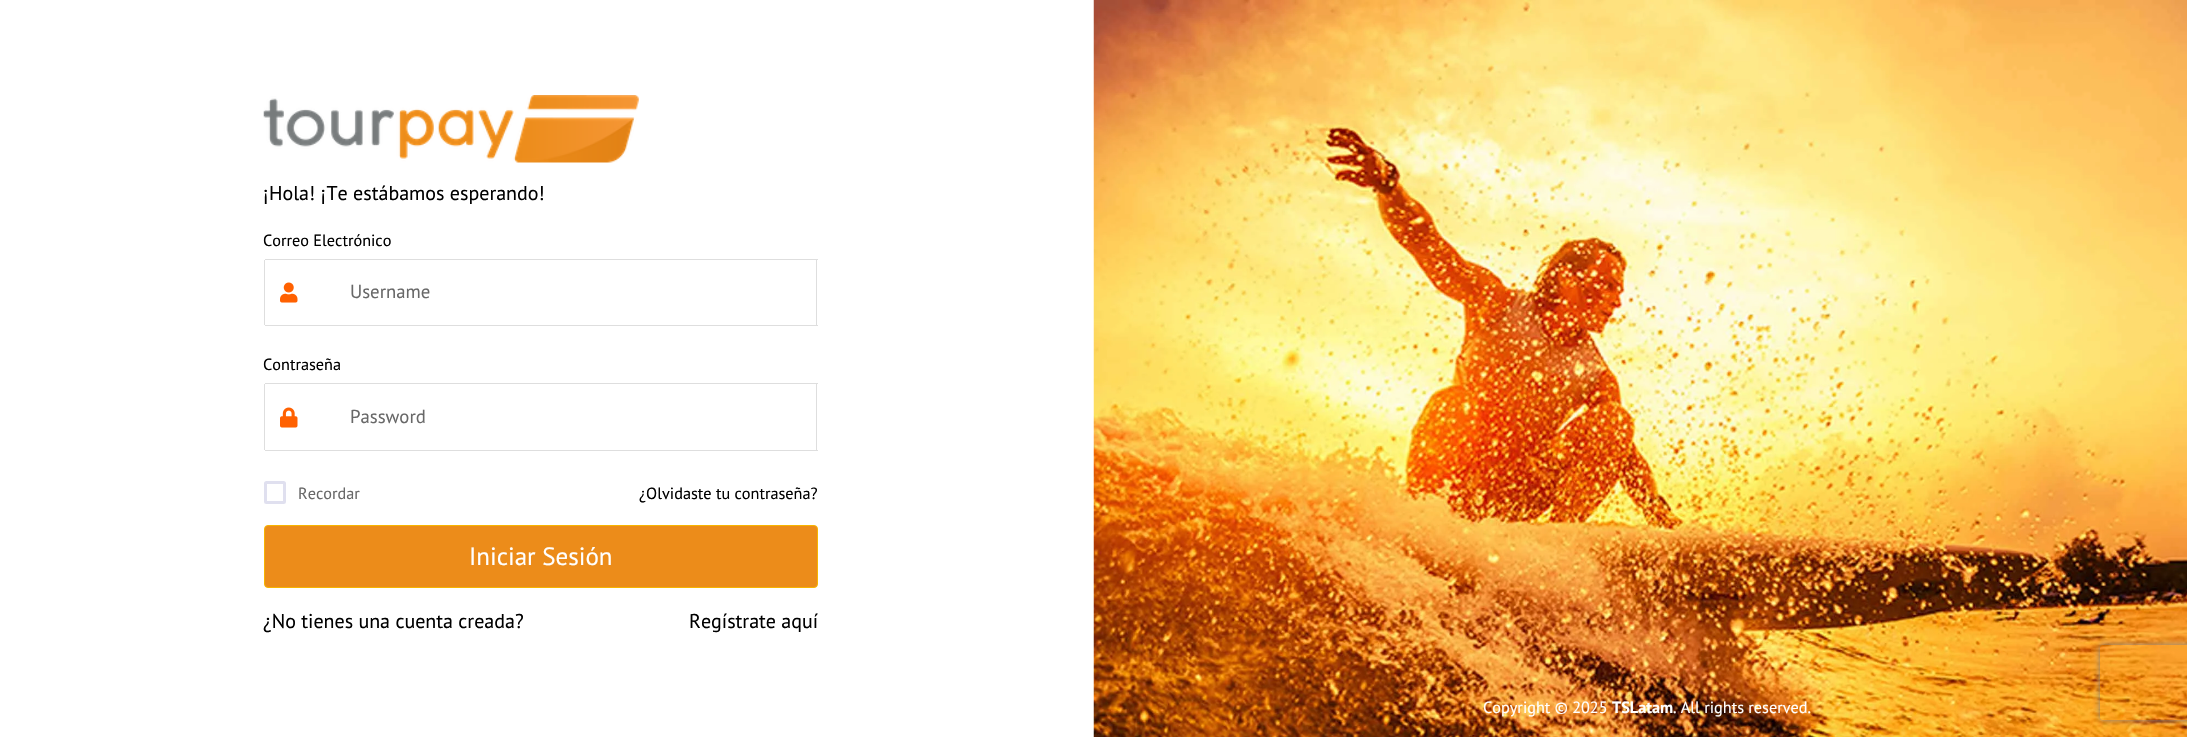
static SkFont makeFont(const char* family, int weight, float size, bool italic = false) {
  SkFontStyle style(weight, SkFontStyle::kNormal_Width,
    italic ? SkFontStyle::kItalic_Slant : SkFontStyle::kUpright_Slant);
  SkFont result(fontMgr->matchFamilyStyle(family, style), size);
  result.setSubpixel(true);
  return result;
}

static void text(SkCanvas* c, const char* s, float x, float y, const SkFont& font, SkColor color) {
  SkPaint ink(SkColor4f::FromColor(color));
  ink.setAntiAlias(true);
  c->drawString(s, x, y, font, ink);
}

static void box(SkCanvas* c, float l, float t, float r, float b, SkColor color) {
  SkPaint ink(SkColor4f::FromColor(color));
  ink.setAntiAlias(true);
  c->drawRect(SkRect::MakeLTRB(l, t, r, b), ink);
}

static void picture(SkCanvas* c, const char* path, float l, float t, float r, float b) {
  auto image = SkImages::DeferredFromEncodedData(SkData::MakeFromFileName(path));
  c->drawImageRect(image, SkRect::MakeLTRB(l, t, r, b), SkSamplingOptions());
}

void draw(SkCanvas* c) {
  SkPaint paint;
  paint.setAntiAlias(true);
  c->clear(0xffffffff);
  picture(c, "img_01.png", 263, 95, 639, 163);
  SkFont face1 = makeFont("PT Sans", 400, 20);
  text(c, "¡Hola! ¡Te estábamos esperando!", 263, 200, face1, 0xff000000);
  SkFont face2 = makeFont("PT Sans", 400, 16.25f);
  text(c, "Correo Electrónico", 263, 246, face2, 0xff000000);
  box(c, 265, 259, 818, 260, 0xffdedede);
  box(c, 265, 325, 313, 326, 0xffdedede);
  box(c, 264, 260, 265, 325, 0xffdedede);
  picture(c, "img_02.png", 280, 282, 298, 303);
  box(c, 816, 259, 817, 326, 0xffdedede);
  box(c, 311, 325, 818, 326, 0xffdedede);
  SkFont face3 = makeFont("PT Sans", 400, 18.75f);
  text(c, "Username", 350, 298, face3, 0xff686868);
  text(c, "Contraseña", 263, 370, face2, 0xff000000);
  box(c, 265, 383, 818, 384, 0xffdedede);
  box(c, 265, 450, 313, 451, 0xffdedede);
  box(c, 264, 384, 265, 450, 0xffdedede);
  picture(c, "img_03.png", 280, 407, 298, 428);
  box(c, 816, 383, 817, 451, 0xffdedede);
  box(c, 311, 450, 818, 451, 0xffdedede);
  text(c, "Password", 350, 423, face3, 0xff686868);
  paint.setStyle(SkPaint::kStroke_Style);
  paint.setStrokeWidth(3);
  paint.setColor(0xffe0e0ef);
  c->drawRoundRect(SkRect::MakeLTRB(265.5f, 482.5f, 284.5f, 502.5f), 1, 1, paint);
  text(c, "Recordar", 298, 499, face2, 0xff686868);
  text(c, "¿Olvidaste tu contraseña?", 639, 499, face2, 0xff000000);
  paint.setStyle(SkPaint::kFill_Style);
  paint.setColor(0xffec8c1a);
  c->drawRoundRect(SkRect::MakeLTRB(264.5f, 525.5f, 817.5f, 587.5f), 3.5f, 3.5f, paint);
  paint.setStyle(SkPaint::kStroke_Style);
  paint.setStrokeWidth(1);
  paint.setColor(0xfff7b500);
  c->drawRoundRect(SkRect::MakeLTRB(264.5f, 525.5f, 817.5f, 587.5f), 3.5f, 3.5f, paint);
  SkFont face4 = makeFont("PT Sans", 400, 25);
  text(c, "Iniciar Sesión", 469, 565, face4, 0xffffffff);
  text(c, "¿No tienes una cuenta creada?", 263, 628, face1, 0xff000000);
  text(c, "Regístrate aquí", 689, 628, face1, 0xff000000);
  picture(c, "img_04.png", 1093, 0, 2187, 737);
  text(c, "Copyright © 2025", 1483, 713, face2, 0xffffffff);
  SkFont face5 = makeFont("PT Sans", 700, 16.25f);
  text(c, "TSLatam", 1612, 713, face5, 0xffffffff);
  text(c, ". All rights reserved.", 1673, 713, face2, 0xffffffff);
  c->save();
  c->clipPath(SkPathBuilder(SkPathFillType::kEvenOdd).moveTo(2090, 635).lineTo(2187, 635).lineTo(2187, 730).lineTo(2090, 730).close().moveTo(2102.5f, 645).lineTo(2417.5f, 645).cubicTo(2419, 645, 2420, 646, 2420, 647.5f).lineTo(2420, 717.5f).cubicTo(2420, 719, 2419, 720, 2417.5f, 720).lineTo(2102.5f, 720).cubicTo(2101, 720, 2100, 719, 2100, 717.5f).lineTo(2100, 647.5f).cubicTo(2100, 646, 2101, 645, 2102.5f, 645).close().detach(), true);
  paint.setStyle(SkPaint::kFill_Style);
  paint.setColor(0xff808080);
  paint.setMaskFilter(SkMaskFilter::MakeBlur(kNormal_SkBlurStyle, 3));
  c->drawRoundRect(SkRect::MakeLTRB(2100, 645, 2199, 720), 2.5f, 2.5f, paint);
  paint.setMaskFilter(nullptr);
  c->restore();
}
